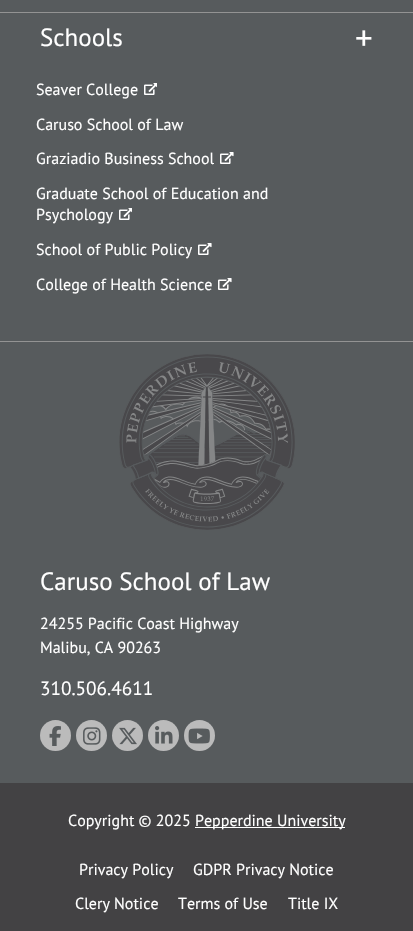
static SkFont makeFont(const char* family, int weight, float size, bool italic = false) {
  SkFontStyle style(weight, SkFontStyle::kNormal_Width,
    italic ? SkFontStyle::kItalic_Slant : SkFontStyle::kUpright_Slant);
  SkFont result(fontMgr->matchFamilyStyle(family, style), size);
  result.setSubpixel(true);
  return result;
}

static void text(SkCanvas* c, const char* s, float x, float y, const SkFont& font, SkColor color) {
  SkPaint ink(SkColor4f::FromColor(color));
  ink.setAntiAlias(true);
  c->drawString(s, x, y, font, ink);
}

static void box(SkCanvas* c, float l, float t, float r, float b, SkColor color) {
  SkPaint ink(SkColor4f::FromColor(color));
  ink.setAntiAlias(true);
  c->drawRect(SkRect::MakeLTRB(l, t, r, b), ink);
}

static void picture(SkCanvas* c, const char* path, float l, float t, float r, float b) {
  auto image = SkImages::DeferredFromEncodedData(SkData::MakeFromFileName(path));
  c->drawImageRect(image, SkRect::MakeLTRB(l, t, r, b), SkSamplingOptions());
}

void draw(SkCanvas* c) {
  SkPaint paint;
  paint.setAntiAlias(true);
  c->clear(0xff575b5d);
  box(c, 0, 12, 413, 13, 0xff939393);
  box(c, 0, 341, 413, 342, 0xff939393);
  SkFont face1 = makeFont("PT Sans", 400, 25);
  text(c, "Schools", 40, 46, face1, 0xffffffff);
  SkFont face2 = makeFont("PT Sans", 400, 35);
  text(c, "+", 355, 50, face2, 0xffffffff);
  SkFont face3 = makeFont("PT Sans", 400, 16);
  text(c, "Seaver College", 36, 95, face3, 0xffffffff);
  picture(c, "img_01.png", 144, 83, 157, 95);
  text(c, "Caruso School of Law", 36, 130, face3, 0xffffffff);
  text(c, "Graziadio Business School", 36, 164, face3, 0xffffffff);
  picture(c, "img_02.png", 220, 152, 234, 164);
  text(c, "Graduate School of Education and", 36, 199, face3, 0xffffffff);
  text(c, "Psychology", 36, 220, face3, 0xffffffff);
  picture(c, "img_01.png", 119, 208, 132, 220);
  text(c, "School of Public Policy", 36, 255, face3, 0xffffffff);
  picture(c, "img_02.png", 198, 243, 212, 255);
  text(c, "College of Health Science", 36, 290, face3, 0xffffffff);
  picture(c, "img_02.png", 218, 278, 232, 290);
  picture(c, "img_03.png", 119, 354, 295, 530);
  text(c, "Caruso School of Law", 40, 590, face1, 0xffffffff);
  text(c, "24255 Pacific Coast Highway", 40, 629, face3, 0xffffffff);
  text(c, "Malibu, CA 90263", 40, 653, face3, 0xffffffff);
  SkFont face4 = makeFont("PT Sans", 400, 19.25f);
  text(c, "310.506.4611", 40, 695, face4, 0xffffffff);
  paint.setColor(0xffbbbbbb);
  c->drawCircle(55.5f, 735.5f, 15.5f, paint);
  picture(c, "img_04.png", 49, 726, 61, 746);
  c->drawCircle(91.5f, 735.5f, 15.5f, paint);
  picture(c, "img_05.png", 83, 727, 101, 745);
  c->drawCircle(127.5f, 735.5f, 15.5f, paint);
  picture(c, "img_06.png", 119, 727, 137, 745);
  c->drawCircle(163.5f, 735.5f, 15.5f, paint);
  picture(c, "img_07.png", 155, 726, 173, 744);
  c->drawCircle(199.5f, 735.5f, 15.5f, paint);
  picture(c, "img_08.png", 188, 728, 210, 744);
  box(c, 0, 783, 413, 931, 0xff434244);
  text(c, "Copyright © 2025", 68, 826, face3, 0xffffffff);
  box(c, 195, 827, 345, 828, 0xffffffff);
  text(c, "Pepperdine University", 195, 826, face3, 0xffffffff);
  text(c, "Privacy Policy", 79, 875, face3, 0xffffffff);
  text(c, "GDPR Privacy Notice", 193, 875, face3, 0xffffffff);
  text(c, "Clery Notice", 75, 909, face3, 0xffffffff);
  text(c, "Terms of Use", 178, 909, face3, 0xffffffff);
  text(c, "Title IX", 288, 909, face3, 0xffffffff);
}
